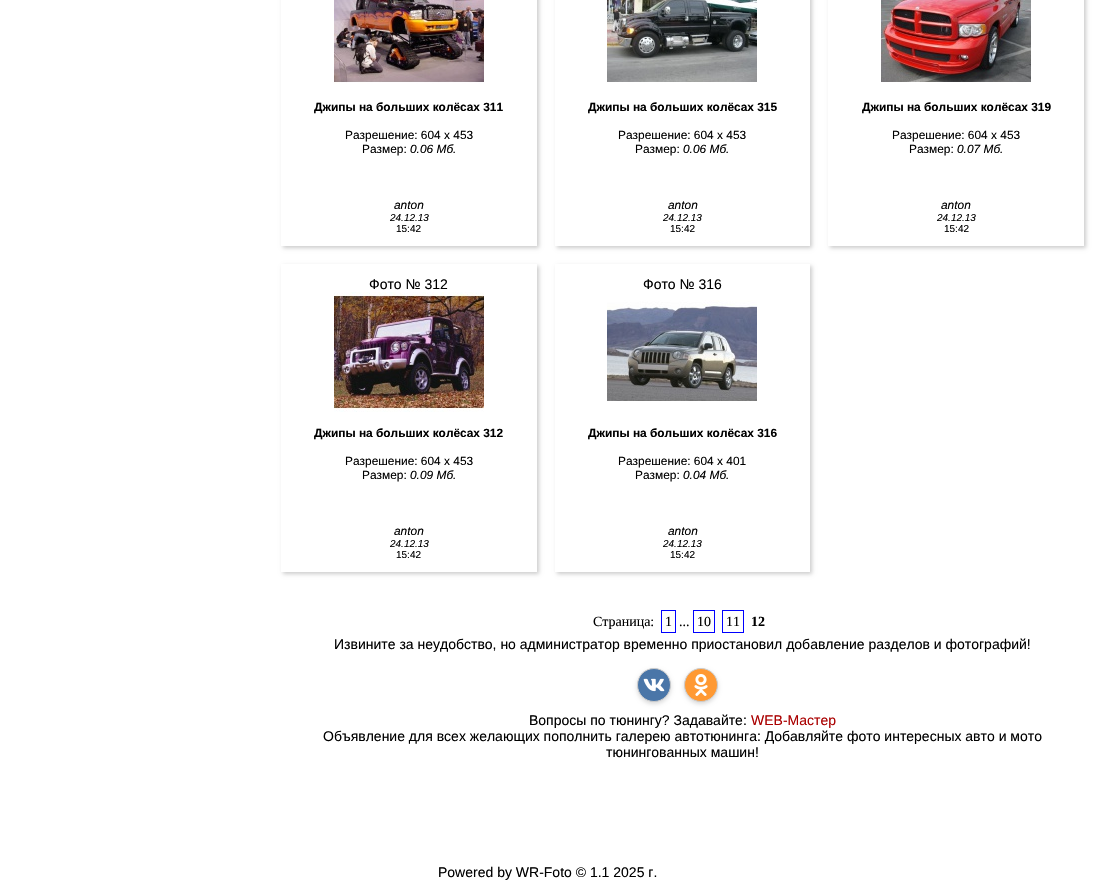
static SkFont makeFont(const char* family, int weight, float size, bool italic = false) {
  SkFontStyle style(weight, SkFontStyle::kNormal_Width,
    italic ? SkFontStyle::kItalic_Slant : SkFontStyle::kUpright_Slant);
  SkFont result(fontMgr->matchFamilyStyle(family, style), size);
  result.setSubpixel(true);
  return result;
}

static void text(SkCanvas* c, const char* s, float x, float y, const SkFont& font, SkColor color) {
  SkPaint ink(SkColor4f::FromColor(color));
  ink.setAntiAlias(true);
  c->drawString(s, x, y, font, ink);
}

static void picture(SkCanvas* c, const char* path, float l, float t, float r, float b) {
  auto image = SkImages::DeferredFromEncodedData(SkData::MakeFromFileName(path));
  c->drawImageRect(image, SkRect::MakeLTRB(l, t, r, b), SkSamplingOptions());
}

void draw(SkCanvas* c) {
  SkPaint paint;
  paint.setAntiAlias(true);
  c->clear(0xffffffff);
  c->save();
  c->clipPath(SkPathBuilder(SkPathFillType::kEvenOdd).moveTo(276, 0).lineTo(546, 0).lineTo(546, 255).lineTo(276, 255).close().moveTo(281, -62).lineTo(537, -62).lineTo(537, 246).lineTo(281, 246).close().detach(), true);
  paint.setColor(0xffcccccc);
  paint.setMaskFilter(SkMaskFilter::MakeBlur(kNormal_SkBlurStyle, 2));
  c->drawRect(SkRect::MakeLTRB(283, -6, 539, 248), paint);
  paint.setMaskFilter(nullptr);
  c->restore();
  picture(c, "img_01.png", 334, 0, 484, 84);
  SkFont face1 = makeFont("Liberation Sans", 700, 11.9f);
  text(c, "Джипы на больших колёсах 311", 314, 111, face1, 0xff000000);
  SkFont face2 = makeFont("Liberation Sans", 400, 11.9f);
  text(c, "Разрешение: 604 x 453", 345, 139, face2, 0xff000000);
  text(c, "Размер:", 362, 153, face2, 0xff000000);
  SkFont face3 = makeFont("Liberation Sans", 400, 11.9f, true);
  text(c, "0.06 Мб.", 410, 153, face3, 0xff000000);
  text(c, "anton", 394, 209, face3, 0xff000000);
  SkFont face4 = makeFont("Liberation Sans", 400, 10, true);
  text(c, "24.12.13", 390, 221, face4, 0xff000000);
  SkFont face5 = makeFont("Liberation Sans", 400, 10);
  text(c, "15:42", 396, 232, face5, 0xff000000);
  c->save();
  c->clipPath(SkPathBuilder(SkPathFillType::kEvenOdd).moveTo(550, 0).lineTo(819, 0).lineTo(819, 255).lineTo(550, 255).close().moveTo(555, -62).lineTo(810, -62).lineTo(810, 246).lineTo(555, 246).close().detach(), true);
  paint.setMaskFilter(SkMaskFilter::MakeBlur(kNormal_SkBlurStyle, 2));
  c->drawRect(SkRect::MakeLTRB(557, -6, 812, 248), paint);
  paint.setMaskFilter(nullptr);
  c->restore();
  picture(c, "img_02.png", 607, 0, 757, 82);
  text(c, "Джипы на больших колёсах 315", 588, 111, face1, 0xff000000);
  text(c, "Разрешение: 604 x 453", 618, 139, face2, 0xff000000);
  text(c, "Размер:", 635, 153, face2, 0xff000000);
  text(c, "0.06 Мб.", 683, 153, face3, 0xff000000);
  text(c, "anton", 668, 209, face3, 0xff000000);
  text(c, "24.12.13", 663, 221, face4, 0xff000000);
  text(c, "15:42", 670, 232, face5, 0xff000000);
  c->save();
  c->clipPath(SkPathBuilder(SkPathFillType::kEvenOdd).moveTo(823, 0).lineTo(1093, 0).lineTo(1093, 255).lineTo(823, 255).close().moveTo(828, -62).lineTo(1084, -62).lineTo(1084, 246).lineTo(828, 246).close().detach(), true);
  paint.setMaskFilter(SkMaskFilter::MakeBlur(kNormal_SkBlurStyle, 2));
  c->drawRect(SkRect::MakeLTRB(830, -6, 1086, 248), paint);
  paint.setMaskFilter(nullptr);
  c->restore();
  picture(c, "img_03.png", 881, 0, 1031, 82);
  text(c, "Джипы на больших колёсах 319", 862, 111, face1, 0xff000000);
  text(c, "Разрешение: 604 x 453", 892, 139, face2, 0xff000000);
  text(c, "Размер:", 909, 153, face2, 0xff000000);
  text(c, "0.07 Мб.", 957, 153, face3, 0xff000000);
  text(c, "anton", 941, 209, face3, 0xff000000);
  text(c, "24.12.13", 937, 221, face4, 0xff000000);
  text(c, "15:42", 944, 232, face5, 0xff000000);
  c->save();
  c->clipPath(SkPathBuilder(SkPathFillType::kEvenOdd).moveTo(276, 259).lineTo(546, 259).lineTo(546, 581).lineTo(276, 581).close().moveTo(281, 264).lineTo(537, 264).lineTo(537, 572).lineTo(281, 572).close().detach(), true);
  paint.setMaskFilter(SkMaskFilter::MakeBlur(kNormal_SkBlurStyle, 2));
  c->drawRect(SkRect::MakeLTRB(283, 266, 539, 574), paint);
  paint.setMaskFilter(nullptr);
  c->restore();
  SkFont face6 = makeFont("Liberation Sans", 400, 14);
  text(c, "Фото № 312", 369, 289, face6, 0xff000000);
  picture(c, "img_04.png", 334, 292, 484, 412);
  text(c, "Джипы на больших колёсах 312", 314, 437, face1, 0xff000000);
  text(c, "Разрешение: 604 x 453", 345, 465, face2, 0xff000000);
  text(c, "Размер:", 362, 479, face2, 0xff000000);
  text(c, "0.09 Мб.", 410, 479, face3, 0xff000000);
  text(c, "anton", 394, 535, face3, 0xff000000);
  text(c, "24.12.13", 390, 547, face4, 0xff000000);
  text(c, "15:42", 396, 558, face5, 0xff000000);
  c->save();
  c->clipPath(SkPathBuilder(SkPathFillType::kEvenOdd).moveTo(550, 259).lineTo(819, 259).lineTo(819, 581).lineTo(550, 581).close().moveTo(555, 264).lineTo(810, 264).lineTo(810, 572).lineTo(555, 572).close().detach(), true);
  paint.setMaskFilter(SkMaskFilter::MakeBlur(kNormal_SkBlurStyle, 2));
  c->drawRect(SkRect::MakeLTRB(557, 266, 812, 574), paint);
  paint.setMaskFilter(nullptr);
  c->restore();
  text(c, "Фото № 316", 643, 289, face6, 0xff000000);
  picture(c, "img_05.png", 607, 300, 757, 401);
  text(c, "Джипы на больших колёсах 316", 588, 437, face1, 0xff000000);
  text(c, "Разрешение: 604 x 401", 618, 465, face2, 0xff000000);
  text(c, "Размер:", 635, 479, face2, 0xff000000);
  text(c, "0.04 Мб.", 683, 479, face3, 0xff000000);
  text(c, "anton", 668, 535, face3, 0xff000000);
  text(c, "24.12.13", 663, 547, face4, 0xff000000);
  text(c, "15:42", 670, 558, face5, 0xff000000);
  SkFont face7 = makeFont("Liberation Serif", 400, 14);
  text(c, "Страница:", 593, 626, face7, 0xff000000);
  paint.setStyle(SkPaint::kStroke_Style);
  paint.setStrokeWidth(1);
  paint.setColor(0xff0000ff);
  c->drawRect(SkRect::MakeLTRB(661.5f, 610.5f, 675.5f, 632.5f), paint);
  text(c, "1", 665, 626, face7, 0xff000000);
  text(c, "...", 679, 626, face7, 0xff000000);
  c->drawRect(SkRect::MakeLTRB(693.5f, 610.5f, 714.5f, 632.5f), paint);
  text(c, "10", 697, 626, face7, 0xff000000);
  c->drawRect(SkRect::MakeLTRB(722.5f, 610.5f, 743.5f, 632.5f), paint);
  text(c, "11", 726, 626, face7, 0xff000000);
  SkFont face8 = makeFont("Liberation Serif", 700, 14);
  text(c, "12", 751, 626, face8, 0xff000000);
  text(c, "Извините за неудобство, но администратор временно приостановил добавление разделов и фотографий!", 334, 649, face6, 0xff000000);
  paint.setStyle(SkPaint::kFill_Style);
  paint.setColor(0x26000000);
  paint.setMaskFilter(SkMaskFilter::MakeBlur(kNormal_SkBlurStyle, 2));
  c->drawRoundRect(SkRect::MakeLTRB(637, 670, 671, 704), 17, 17, paint);
  paint.setMaskFilter(nullptr);
  paint.setColor(0xff4a76a8);
  c->drawCircle(654, 685, 16.5f, paint);
  paint.setStyle(SkPaint::kStroke_Style);
  paint.setColor(0xffcccccc);
  c->drawCircle(654, 685, 16.5f, paint);
  picture(c, "img_06.png", 643, 678, 665, 692);
  paint.setStyle(SkPaint::kFill_Style);
  paint.setColor(0x26000000);
  paint.setMaskFilter(SkMaskFilter::MakeBlur(kNormal_SkBlurStyle, 2));
  c->drawRoundRect(SkRect::MakeLTRB(684, 670, 718, 704), 17, 17, paint);
  paint.setMaskFilter(nullptr);
  paint.setColor(0xffff9933);
  c->drawCircle(701, 685, 16.5f, paint);
  paint.setStyle(SkPaint::kStroke_Style);
  paint.setColor(0xffcccccc);
  c->drawCircle(701, 685, 16.5f, paint);
  picture(c, "img_07.png", 694, 674, 708, 696);
  text(c, "Вопросы по тюнингу? Задавайте:", 529, 725, face6, 0xff000000);
  text(c, "WEB-Мастер", 751, 725, face6, 0xffaa0000);
  text(c, "Объявление для всех желающих пополнить галерею автотюнинга: Добавляйте фото интересных авто и мото", 323, 741, face6, 0xff000000);
  text(c, "тюнингованных машин!", 606, 757, face6, 0xff000000);
  text(c, "Powered by WR-Foto © 1.1 2025 г.", 438, 877, face6, 0xff000000);
}
